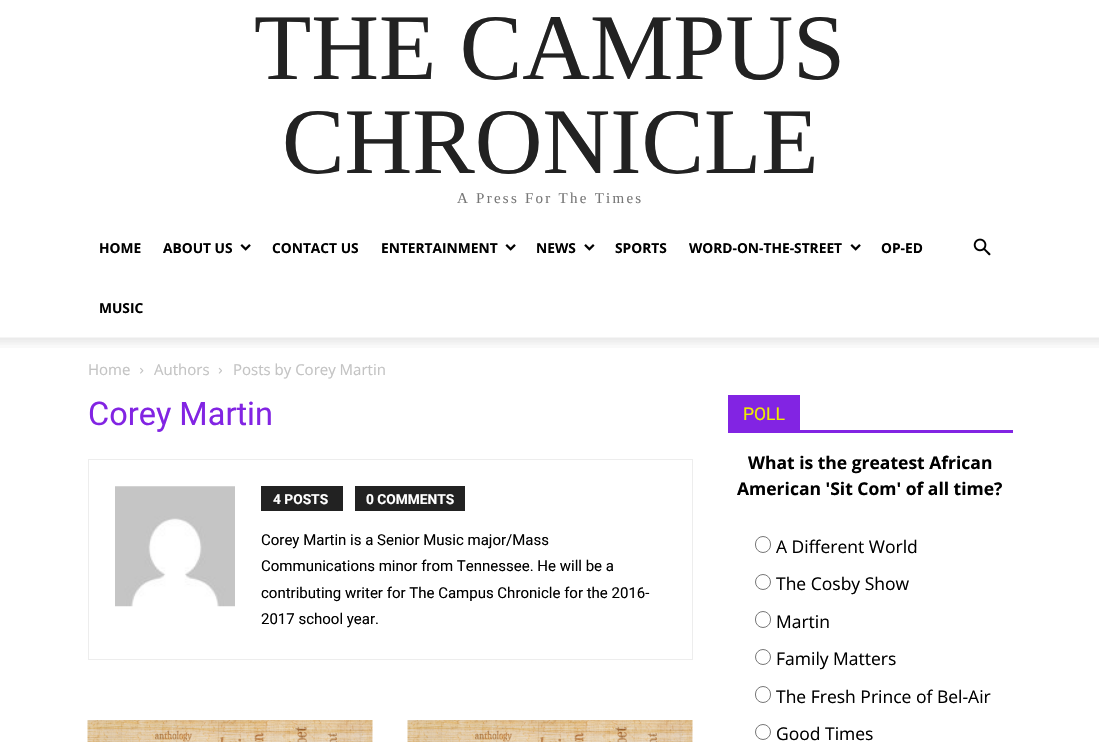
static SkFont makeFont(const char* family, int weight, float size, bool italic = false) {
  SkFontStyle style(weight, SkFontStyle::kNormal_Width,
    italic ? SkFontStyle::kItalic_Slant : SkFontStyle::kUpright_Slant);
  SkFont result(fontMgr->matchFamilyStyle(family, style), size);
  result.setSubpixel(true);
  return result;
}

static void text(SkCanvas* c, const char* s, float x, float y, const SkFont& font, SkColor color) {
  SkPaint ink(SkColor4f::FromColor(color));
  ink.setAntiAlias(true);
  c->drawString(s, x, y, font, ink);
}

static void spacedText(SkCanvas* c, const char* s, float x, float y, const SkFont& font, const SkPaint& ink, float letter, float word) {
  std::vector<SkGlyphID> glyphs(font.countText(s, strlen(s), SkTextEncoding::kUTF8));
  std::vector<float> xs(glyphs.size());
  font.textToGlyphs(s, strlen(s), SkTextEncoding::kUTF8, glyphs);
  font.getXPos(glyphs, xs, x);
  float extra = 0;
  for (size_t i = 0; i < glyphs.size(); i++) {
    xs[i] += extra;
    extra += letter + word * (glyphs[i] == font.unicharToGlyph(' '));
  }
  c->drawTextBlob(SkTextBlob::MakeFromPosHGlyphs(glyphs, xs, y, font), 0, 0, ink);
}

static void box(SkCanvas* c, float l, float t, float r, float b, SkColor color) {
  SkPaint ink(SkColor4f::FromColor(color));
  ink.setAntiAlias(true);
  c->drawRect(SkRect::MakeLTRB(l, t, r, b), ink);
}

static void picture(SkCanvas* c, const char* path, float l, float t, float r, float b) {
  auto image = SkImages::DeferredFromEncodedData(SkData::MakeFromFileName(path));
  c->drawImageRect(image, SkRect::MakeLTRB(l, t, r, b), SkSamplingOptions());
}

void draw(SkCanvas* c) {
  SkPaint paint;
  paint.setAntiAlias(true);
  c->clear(0xffffffff);
  SkFont face1 = makeFont("Liberation Serif", 400, 93.75f);
  text(c, "THE CAMPUS", 254, 79, face1, 0xff222222);
  text(c, "CHRONICLE", 282, 173, face1, 0xff222222);
  SkFont face2 = makeFont("Liberation Serif", 400, 15);
  paint.setColor(0xff777777);
  spacedText(c, "A Press For The Times", 457, 203, face2, paint, 2.25f, 0);
  SkFont face3 = makeFont("Open Sans", 700, 13.75f);
  text(c, "HOME", 99, 253, face3, 0xff000000);
  text(c, "ABOUT US", 163, 253, face3, 0xff000000);
  picture(c, "img_01.png", 240, 244, 251, 251);
  text(c, "CONTACT US", 272, 253, face3, 0xff000000);
  text(c, "ENTERTAINMENT", 381, 253, face3, 0xff000000);
  picture(c, "img_01.png", 505, 244, 516, 251);
  text(c, "NEWS", 536, 253, face3, 0xff000000);
  picture(c, "img_02.png", 584, 244, 595, 251);
  text(c, "SPORTS", 615, 253, face3, 0xff000000);
  text(c, "WORD-ON-THE-STREET", 689, 253, face3, 0xff000000);
  picture(c, "img_01.png", 850, 244, 861, 251);
  text(c, "OP-ED", 881, 253, face3, 0xff000000);
  text(c, "MUSIC", 99, 313, face3, 0xff000000);
  picture(c, "img_03.png", 973, 238, 991, 256);
  picture(c, "img_04.png", 0, 337, 1099, 348);
  SkFont face4 = makeFont("Open Sans", 400, 15);
  text(c, "Home", 88, 375, face4, 0xffc3c3c3);
  picture(c, "img_05.png", 140, 367, 144, 374);
  text(c, "Authors", 154, 375, face4, 0xffc3c3c3);
  picture(c, "img_06.png", 218, 367, 222, 374);
  text(c, "Posts by Corey Martin", 233, 375, face4, 0xffc3c3c3);
  SkFont face5 = makeFont("Roboto", 400, 32.5f);
  text(c, "Corey Martin", 88, 425, face5, 0xff8224e3);
  paint.setStyle(SkPaint::kStroke_Style);
  paint.setStrokeWidth(1);
  paint.setColor(0xffededed);
  c->drawRect(SkRect::MakeLTRB(88.5f, 459.5f, 692.5f, 659.5f), paint);
  picture(c, "img_07.png", 115, 486, 235, 607);
  box(c, 261, 486, 343, 511, 0xff222222);
  SkFont face6 = makeFont("Roboto", 700, 13.75f);
  text(c, "4 POSTS", 273, 504, face6, 0xffffffff);
  box(c, 355, 486, 465, 511, 0xff222222);
  text(c, "0 COMMENTS", 366, 504, face6, 0xffffffff);
  SkFont face7 = makeFont("Roboto", 400, 15);
  text(c, "Corey Martin is a Senior Music major/Mass", 261, 545, face7, 0xff000000);
  text(c, "Communications minor from Tennessee. He will be a", 261, 571, face7, 0xff000000);
  text(c, "contributing writer for The Campus Chronicle for the 2016-", 261, 598, face7, 0xff000000);
  text(c, "2017 school year.", 261, 624, face7, 0xff000000);
  picture(c, "img_08.png", 87, 720, 373, 742);
  picture(c, "img_08.png", 407, 720, 693, 742);
  box(c, 728, 430, 1013, 433, 0xff8224e3);
  box(c, 728, 395, 800, 430, 0xff8224e3);
  SkFont face8 = makeFont("Roboto", 400, 17.5f);
  text(c, "POLL", 743, 420, face8, 0xffeded00);
  SkFont face9 = makeFont("Open Sans", 700, 17.5f);
  text(c, "What is the greatest African", 748, 469, face9, 0xff000000);
  text(c, "American 'Sit Com' of all time?", 737, 495, face9, 0xff000000);
  paint.setColor(0xff767676);
  c->drawRoundRect(SkRect::MakeLTRB(755.5f, 536.5f, 770.5f, 552.5f), 7.5f, 7.5f, paint);
  SkFont face10 = makeFont("Open Sans", 400, 17.5f);
  text(c, "A Different World", 776, 553, face10, 0xff000000);
  c->drawCircle(763, 582, 7.5f, paint);
  text(c, "The Cosby Show", 776, 590, face10, 0xff000000);
  c->drawRoundRect(SkRect::MakeLTRB(755.5f, 611.5f, 770.5f, 627.5f), 7.5f, 7.5f, paint);
  text(c, "Martin", 776, 628, face10, 0xff000000);
  c->drawCircle(763, 657, 7.5f, paint);
  text(c, "Family Matters", 776, 665, face10, 0xff000000);
  c->drawRoundRect(SkRect::MakeLTRB(755.5f, 686.5f, 770.5f, 702.5f), 7.5f, 7.5f, paint);
  text(c, "The Fresh Prince of Bel-Air", 776, 703, face10, 0xff000000);
  c->drawCircle(763, 732, 7.5f, paint);
  text(c, "Good Times", 776, 740, face10, 0xff000000);
}
